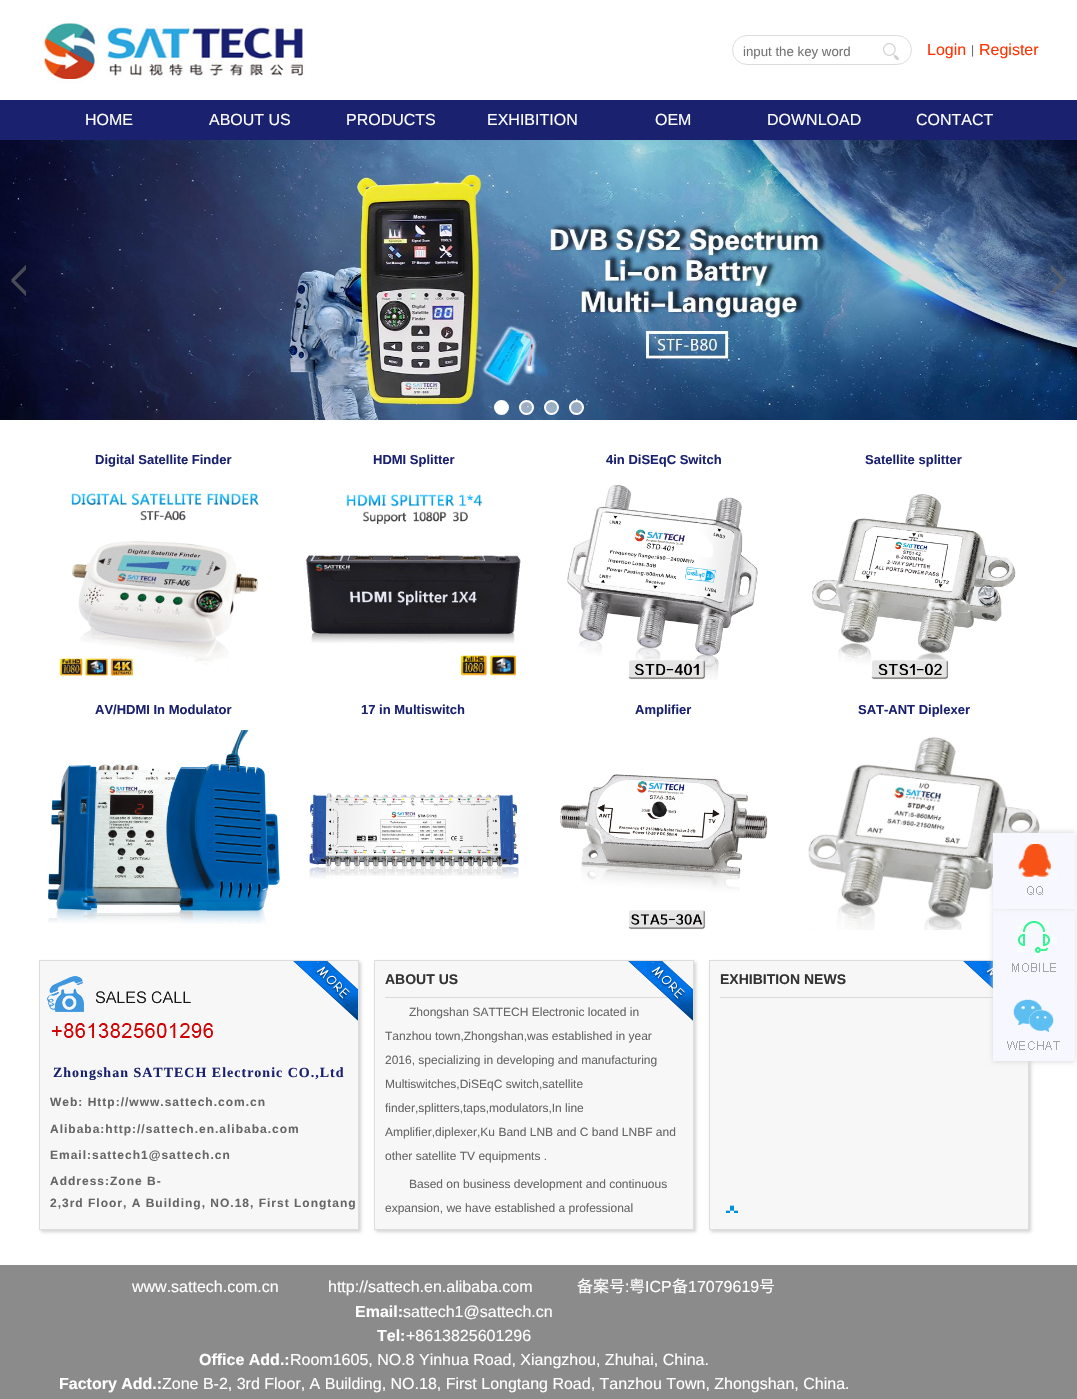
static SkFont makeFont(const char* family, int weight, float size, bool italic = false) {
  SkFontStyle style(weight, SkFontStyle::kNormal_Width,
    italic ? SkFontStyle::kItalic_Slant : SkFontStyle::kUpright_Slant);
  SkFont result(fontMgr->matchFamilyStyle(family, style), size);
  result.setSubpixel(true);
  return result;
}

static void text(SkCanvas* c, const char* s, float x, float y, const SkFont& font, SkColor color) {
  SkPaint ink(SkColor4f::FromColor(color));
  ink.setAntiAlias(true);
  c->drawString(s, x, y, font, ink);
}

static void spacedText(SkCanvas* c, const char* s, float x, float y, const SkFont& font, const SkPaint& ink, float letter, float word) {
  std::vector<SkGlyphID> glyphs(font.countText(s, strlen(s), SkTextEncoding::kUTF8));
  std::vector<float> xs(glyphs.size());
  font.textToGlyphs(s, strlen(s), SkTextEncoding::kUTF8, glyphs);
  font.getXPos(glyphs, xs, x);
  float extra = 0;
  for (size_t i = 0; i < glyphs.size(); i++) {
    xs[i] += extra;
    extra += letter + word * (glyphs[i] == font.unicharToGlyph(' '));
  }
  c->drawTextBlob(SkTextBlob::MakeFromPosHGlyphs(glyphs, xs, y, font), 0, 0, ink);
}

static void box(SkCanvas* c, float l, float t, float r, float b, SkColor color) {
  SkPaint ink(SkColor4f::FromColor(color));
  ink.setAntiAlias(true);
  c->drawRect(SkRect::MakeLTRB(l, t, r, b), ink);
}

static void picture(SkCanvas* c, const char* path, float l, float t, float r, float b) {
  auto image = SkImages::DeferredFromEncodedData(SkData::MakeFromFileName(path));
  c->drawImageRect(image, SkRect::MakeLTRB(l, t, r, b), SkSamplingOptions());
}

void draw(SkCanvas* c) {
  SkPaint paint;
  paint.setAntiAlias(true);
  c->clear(0xffffffff);
  picture(c, "img_01.png", 39, 23, 305, 84);
  paint.setStyle(SkPaint::kStroke_Style);
  paint.setStrokeWidth(1);
  paint.setColor(0xffdddddd);
  c->drawRoundRect(SkRect::MakeLTRB(732.5f, 35.5f, 911.5f, 64.5f), 14.5f, 14.5f, paint);
  SkFont face1 = makeFont("Liberation Sans", 400, 13.25f);
  text(c, "input the key word", 743, 56, face1, 0xff757575);
  picture(c, "img_02.png", 883, 43, 899, 60);
  SkFont face2 = makeFont("Liberation Sans", 400, 16);
  text(c, "Login", 927, 55, face2, 0xffff3300);
  SkFont face3 = makeFont("Liberation Sans", 400, 12);
  text(c, "|", 971, 54, face3, 0xff666666);
  text(c, "Register", 979, 55, face2, 0xffff3300);
  box(c, 0, 100, 1077, 140, 0xff1a226f);
  text(c, "HOME", 85, 125, face2, 0xffffffff);
  text(c, "ABOUT US", 209, 125, face2, 0xffffffff);
  text(c, "PRODUCTS", 346, 125, face2, 0xffffffff);
  text(c, "EXHIBITION", 487, 125, face2, 0xffffffff);
  text(c, "OEM", 655, 125, face2, 0xffffffff);
  text(c, "DOWNLOAD", 767, 125, face2, 0xffffffff);
  text(c, "CONTACT", 916, 125, face2, 0xffffffff);
  picture(c, "img_03.png", 0, 140, 1077, 420);
  picture(c, "img_04.png", 11, 265, 26, 296);
  picture(c, "img_05.png", 1051, 265, 1066, 296);
  paint.setStyle(SkPaint::kFill_Style);
  paint.setColor(0xffffffff);
  c->drawCircle(501.5f, 407.5f, 6.5f, paint);
  paint.setStyle(SkPaint::kStroke_Style);
  paint.setStrokeWidth(2);
  c->drawCircle(501.5f, 407.5f, 6.5f, paint);
  paint.setStyle(SkPaint::kFill_Style);
  paint.setColor(0x80ffffff);
  c->drawCircle(526.5f, 407.5f, 6.5f, paint);
  paint.setStyle(SkPaint::kStroke_Style);
  paint.setColor(0xffffffff);
  c->drawCircle(526.5f, 407.5f, 6.5f, paint);
  paint.setStyle(SkPaint::kFill_Style);
  paint.setColor(0x80ffffff);
  c->drawCircle(551.5f, 407.5f, 6.5f, paint);
  paint.setStyle(SkPaint::kStroke_Style);
  paint.setColor(0xffffffff);
  c->drawCircle(551.5f, 407.5f, 6.5f, paint);
  paint.setStyle(SkPaint::kFill_Style);
  paint.setColor(0x80ffffff);
  c->drawCircle(576.5f, 407.5f, 6.5f, paint);
  paint.setStyle(SkPaint::kStroke_Style);
  paint.setColor(0xffffffff);
  c->drawCircle(576.5f, 407.5f, 6.5f, paint);
  SkFont face4 = makeFont("Liberation Sans", 700, 13);
  text(c, "Satellite splitter", 865, 464, face4, 0xff1a226f);
  picture(c, "img_06.png", 812, 494, 1016, 680);
  text(c, "AV/HDMI In Modulator", 95, 714, face4, 0xff1a226f);
  picture(c, "img_07.png", 48, 730, 280, 924);
  text(c, "Digital Satellite Finder", 95, 464, face4, 0xff1a226f);
  picture(c, "img_08.png", 58, 493, 259, 677);
  text(c, "HDMI Splitter", 373, 464, face4, 0xff1a226f);
  picture(c, "img_09.png", 305, 494, 521, 676);
  text(c, "4in DiSEqC Switch", 606, 464, face4, 0xff1a226f);
  picture(c, "img_10.png", 567, 485, 758, 680);
  text(c, "17 in Multiswitch", 361, 714, face4, 0xff1a226f);
  picture(c, "img_11.png", 309, 793, 519, 879);
  text(c, "Amplifier", 635, 714, face4, 0xff1a226f);
  picture(c, "img_12.png", 560, 774, 768, 930);
  text(c, "SAT-ANT Diplexer", 858, 714, face4, 0xff1a226f);
  picture(c, "img_13.png", 808, 737, 1040, 930);
  paint.setStyle(SkPaint::kFill_Style);
  paint.setColor(0xffd4d4d4);
  paint.setMaskFilter(SkMaskFilter::MakeBlur(kNormal_SkBlurStyle, 1.5f));
  c->drawRect(SkRect::MakeLTRB(41, 962, 361, 1232), paint);
  paint.setMaskFilter(nullptr);
  paint.setColor(0xfff7f7f7);
  c->drawRect(SkRect::MakeLTRB(39.5f, 960.5f, 358.5f, 1229.5f), paint);
  paint.setStyle(SkPaint::kStroke_Style);
  paint.setStrokeWidth(1);
  paint.setColor(0xffdddddd);
  c->drawRect(SkRect::MakeLTRB(39.5f, 960.5f, 358.5f, 1229.5f), paint);
  picture(c, "img_14.png", 293, 961, 358, 1021);
  picture(c, "img_15.png", 47, 976, 213, 1038);
  SkFont face5 = makeFont("Liberation Serif", 700, 14);
  paint.setStyle(SkPaint::kFill_Style);
  paint.setColor(0xff1a226f);
  spacedText(c, "Zhongshan SATTECH Electronic CO.,Ltd", 53, 1077, face5, paint, 1, 0);
  SkFont face6 = makeFont("Liberation Sans", 700, 12);
  paint.setColor(0xff666666);
  spacedText(c, "Web: Http://www.sattech.com.cn", 50, 1106, face6, paint, 1, 0);
  spacedText(c, "Alibaba:http://sattech.en.alibaba.com", 50, 1133, face6, paint, 1, 0);
  spacedText(c, "Email:sattech1@sattech.cn", 50, 1159, face6, paint, 1, 0);
  spacedText(c, "Address:Zone B-", 50, 1185, face6, paint, 1, 0);
  spacedText(c, "2,3rd Floor, A Building, NO.18, First Longtang", 50, 1207, face6, paint, 1, 0);
  paint.setColor(0xffd4d4d4);
  paint.setMaskFilter(SkMaskFilter::MakeBlur(kNormal_SkBlurStyle, 1.5f));
  c->drawRect(SkRect::MakeLTRB(376, 962, 696, 1232), paint);
  paint.setMaskFilter(nullptr);
  paint.setColor(0xfff7f7f7);
  c->drawRect(SkRect::MakeLTRB(374.5f, 960.5f, 693.5f, 1229.5f), paint);
  paint.setStyle(SkPaint::kStroke_Style);
  paint.setColor(0xffdddddd);
  c->drawRect(SkRect::MakeLTRB(374.5f, 960.5f, 693.5f, 1229.5f), paint);
  box(c, 385, 997, 667, 998, 0xffd9d9d9);
  text(c, "Zhongshan SATTECH Electronic located in", 409, 1016, face3, 0xff666666);
  picture(c, "img_16.png", 628, 961, 693, 1021);
  SkFont face7 = makeFont("Liberation Sans", 700, 14);
  text(c, "ABOUT US", 385, 984, face7, 0xff333333);
  text(c, "Tanzhou town,Zhongshan,was established in year", 385, 1040, face3, 0xff666666);
  text(c, "2016, specializing in developing and manufacturing", 385, 1064, face3, 0xff666666);
  text(c, "Multiswitches,DiSEqC switch,satellite", 385, 1088, face3, 0xff666666);
  text(c, "finder,splitters,taps,modulators,In line", 385, 1112, face3, 0xff666666);
  text(c, "Amplifier,diplexer,Ku Band LNB and C band LNBF and", 385, 1136, face3, 0xff666666);
  text(c, "other satellite TV equipments .", 385, 1160, face3, 0xff666666);
  text(c, "Based on business development and continuous", 409, 1188, face3, 0xff666666);
  text(c, "expansion, we have established a professional", 385, 1212, face3, 0xff666666);
  paint.setStyle(SkPaint::kFill_Style);
  paint.setColor(0xffd4d4d4);
  paint.setMaskFilter(SkMaskFilter::MakeBlur(kNormal_SkBlurStyle, 1.5f));
  c->drawRect(SkRect::MakeLTRB(711, 962, 1031, 1232), paint);
  paint.setMaskFilter(nullptr);
  paint.setColor(0xfff7f7f7);
  c->drawRect(SkRect::MakeLTRB(709.5f, 960.5f, 1028.5f, 1229.5f), paint);
  paint.setStyle(SkPaint::kStroke_Style);
  paint.setColor(0xffdddddd);
  c->drawRect(SkRect::MakeLTRB(709.5f, 960.5f, 1028.5f, 1229.5f), paint);
  box(c, 720, 997, 993, 998, 0xffd9d9d9);
  text(c, "EXHIBITION NEWS", 720, 984, face7, 0xff333333);
  picture(c, "img_17.png", 726, 1205, 738, 1213);
  picture(c, "img_18.png", 963, 961, 993, 989);
  paint.setStyle(SkPaint::kFill_Style);
  paint.setMaskFilter(SkMaskFilter::MakeBlur(kNormal_SkBlurStyle, 2.5f));
  c->drawRect(SkRect::MakeLTRB(993, 910, 1075, 1062), paint);
  paint.setMaskFilter(nullptr);
  picture(c, "img_20.png", 993, 909, 1075, 985);
  paint.setMaskFilter(SkMaskFilter::MakeBlur(kNormal_SkBlurStyle, 2.5f));
  c->drawRect(SkRect::MakeLTRB(993, 832, 1075, 908), paint);
  paint.setMaskFilter(nullptr);
  picture(c, "img_19.png", 993, 833, 1075, 909);
  picture(c, "img_21.png", 993, 985, 1075, 1061);
  box(c, 0, 1265, 1077, 1399, 0xff8b8b8b);
  text(c, "www.sattech.com.cn", 132, 1292, face2, 0xffffffff);
  text(c, "http://sattech.en.alibaba.com", 328, 1292, face2, 0xffffffff);
  SkFont face8 = makeFont("Noto Sans CJK SC", 400, 16);
  text(c, "备案号", 577, 1292, face8, 0xffffffff);
  text(c, ":", 625, 1292, face2, 0xffffffff);
  text(c, "粤", 629, 1292, face8, 0xffffffff);
  text(c, "ICP", 645, 1292, face2, 0xffffffff);
  text(c, "备", 672, 1292, face8, 0xffffffff);
  text(c, "17079619", 688, 1292, face2, 0xffffffff);
  text(c, "号", 759, 1292, face8, 0xffffffff);
  SkFont face9 = makeFont("Liberation Sans", 700, 16);
  text(c, "Email:", 355, 1317, face9, 0xffffffff);
  text(c, "sattech1@sattech.cn", 403, 1317, face2, 0xffffffff);
  text(c, "Tel:", 377, 1341, face9, 0xffffffff);
  text(c, "+8613825601296", 406, 1341, face2, 0xffffffff);
  text(c, "Office Add.:", 199, 1365, face9, 0xffffffff);
  text(c, "Room1605, NO.8 Yinhua Road, Xiangzhou, Zhuhai, China.", 290, 1365, face2, 0xffffffff);
  text(c, "Factory Add.:", 59, 1389, face9, 0xffffffff);
  text(c, "Zone B-2, 3rd Floor, A Building, NO.18, First Longtang Road, Tanzhou Town, Zhongshan, China.", 162, 1389, face2, 0xffffffff);
}
